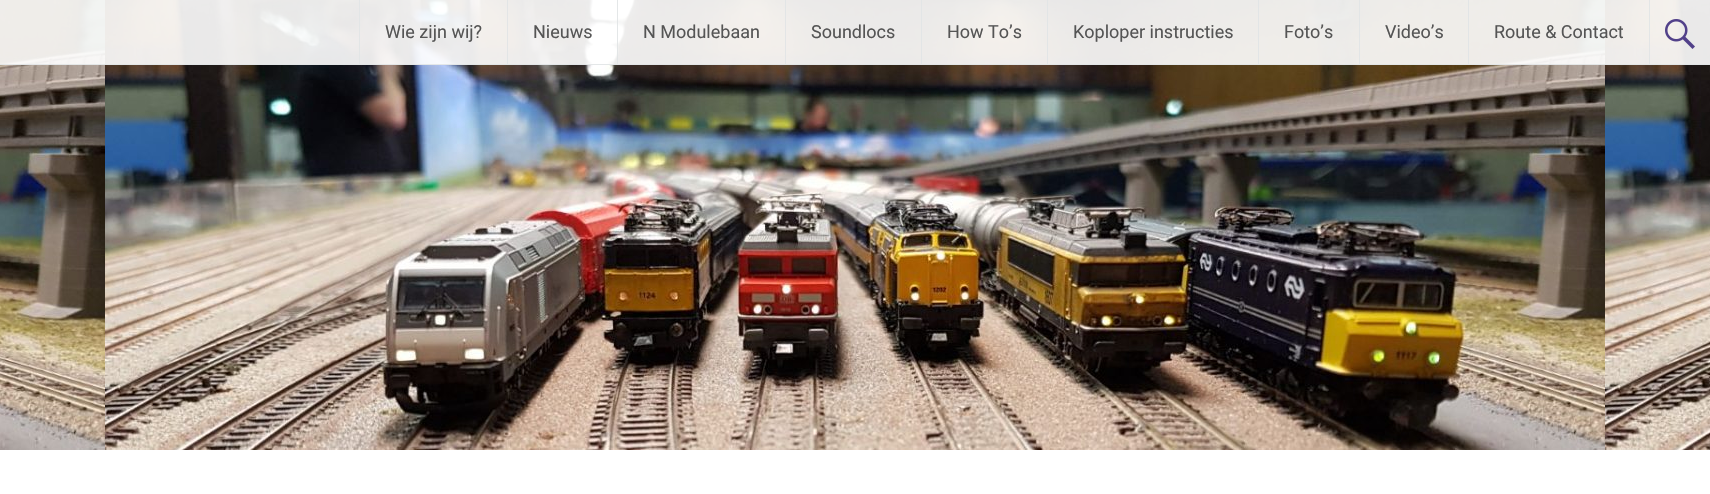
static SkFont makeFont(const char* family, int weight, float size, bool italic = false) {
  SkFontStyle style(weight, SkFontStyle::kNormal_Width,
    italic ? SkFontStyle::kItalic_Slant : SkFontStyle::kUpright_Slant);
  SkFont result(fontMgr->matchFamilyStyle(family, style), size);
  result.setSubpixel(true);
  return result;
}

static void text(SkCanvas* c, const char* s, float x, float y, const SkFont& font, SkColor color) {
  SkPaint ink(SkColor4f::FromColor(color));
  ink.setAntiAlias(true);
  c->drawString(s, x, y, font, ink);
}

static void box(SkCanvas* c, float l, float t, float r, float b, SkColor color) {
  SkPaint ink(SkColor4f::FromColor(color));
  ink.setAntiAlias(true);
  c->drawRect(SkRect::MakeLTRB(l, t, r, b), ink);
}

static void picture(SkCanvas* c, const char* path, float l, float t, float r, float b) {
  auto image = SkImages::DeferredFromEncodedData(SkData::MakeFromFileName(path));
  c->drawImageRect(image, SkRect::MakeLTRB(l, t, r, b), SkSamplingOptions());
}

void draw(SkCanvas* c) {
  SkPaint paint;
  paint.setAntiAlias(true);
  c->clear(0xffffffff);
  picture(c, "img_01.png", 0, 0, 1710, 450);
  box(c, 0, 0, 1710, 65, 0xe6ffffff);
  box(c, 0, 64, 1710, 65, 0xe6e1e4e6);
  box(c, 359, 0, 360, 64, 0xe6e1e4e6);
  SkFont face1 = makeFont("Roboto", 400, 18);
  text(c, "Wie zijn wij?", 385, 38, face1, 0xff555555);
  box(c, 507, 0, 508, 64, 0xe6e1e4e6);
  text(c, "Nieuws", 533, 38, face1, 0xff555555);
  box(c, 617, 0, 618, 64, 0xe6e1e4e6);
  text(c, "N Modulebaan", 643, 38, face1, 0xff555555);
  box(c, 785, 0, 786, 64, 0xe6e1e4e6);
  text(c, "Soundlocs", 811, 38, face1, 0xff555555);
  box(c, 921, 0, 922, 64, 0xe6e1e4e6);
  text(c, "How To’s", 947, 38, face1, 0xff555555);
  box(c, 1047, 0, 1048, 64, 0xe6e1e4e6);
  text(c, "Koploper instructies", 1073, 38, face1, 0xff555555);
  box(c, 1258, 0, 1259, 64, 0xe6e1e4e6);
  text(c, "Foto’s", 1284, 38, face1, 0xff555555);
  box(c, 1359, 0, 1360, 64, 0xe6e1e4e6);
  text(c, "Video’s", 1385, 38, face1, 0xff555555);
  box(c, 1468, 0, 1469, 64, 0xffe2e5e6);
  text(c, "Route & Contact", 1494, 38, face1, 0xff555555);
  box(c, 1649, 0, 1650, 64, 0xe6e1e4e6);
  picture(c, "img_02.png", 1665, 19, 1695, 49);
}
